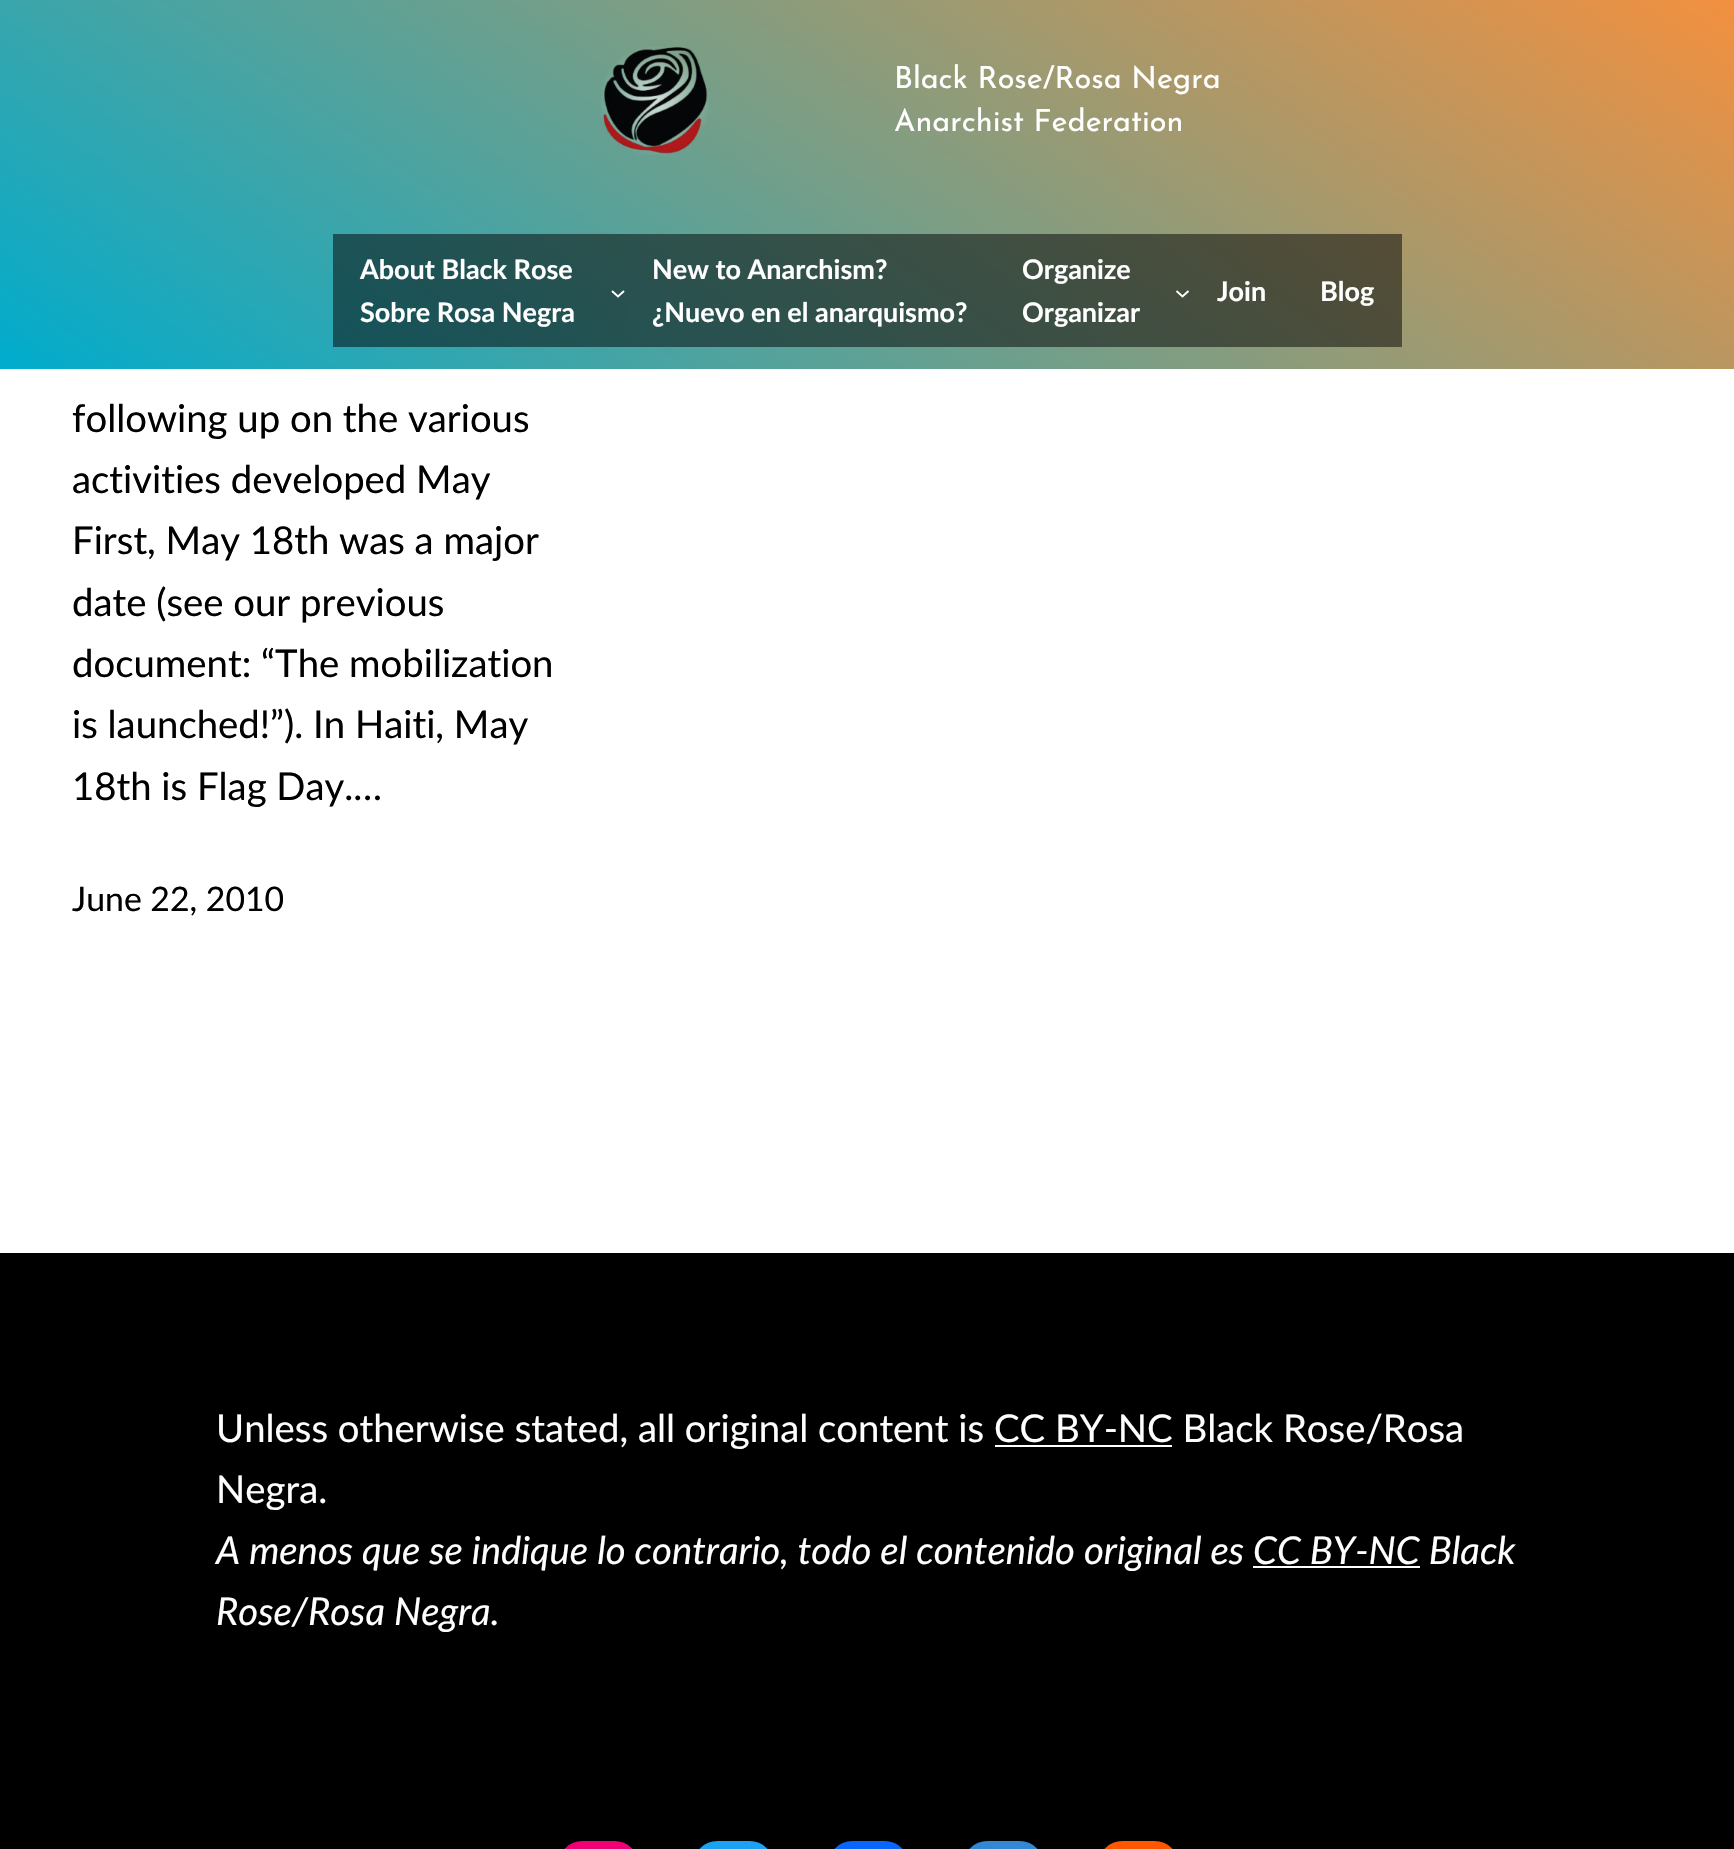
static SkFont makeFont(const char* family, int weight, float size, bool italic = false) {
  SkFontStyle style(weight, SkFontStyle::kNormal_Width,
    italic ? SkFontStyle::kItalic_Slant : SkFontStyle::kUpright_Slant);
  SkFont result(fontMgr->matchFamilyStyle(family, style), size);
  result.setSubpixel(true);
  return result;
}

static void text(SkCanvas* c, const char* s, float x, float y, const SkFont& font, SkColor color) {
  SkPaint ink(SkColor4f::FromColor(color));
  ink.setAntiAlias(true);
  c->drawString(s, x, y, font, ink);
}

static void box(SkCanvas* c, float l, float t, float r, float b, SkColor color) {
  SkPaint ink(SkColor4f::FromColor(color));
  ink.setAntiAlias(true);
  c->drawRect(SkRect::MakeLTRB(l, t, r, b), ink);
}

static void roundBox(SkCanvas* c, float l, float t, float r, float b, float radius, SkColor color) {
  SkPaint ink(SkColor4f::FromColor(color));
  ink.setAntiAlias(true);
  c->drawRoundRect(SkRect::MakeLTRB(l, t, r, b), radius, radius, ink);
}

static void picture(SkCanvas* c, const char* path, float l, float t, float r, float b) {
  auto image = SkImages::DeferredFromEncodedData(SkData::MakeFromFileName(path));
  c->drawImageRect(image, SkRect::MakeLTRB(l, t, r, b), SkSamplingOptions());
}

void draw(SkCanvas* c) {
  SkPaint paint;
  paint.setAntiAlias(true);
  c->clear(0xffffffff);
  {
    const SkColor colors[] = {0xfff3903f, 0xff00accd};
    const float stops[] = {0, 1};
    const SkPoint ends[] = {{1239, -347}, {495, 716}};
    paint.setShader(SkGradientShader::MakeLinear(ends, colors, stops, 2, SkTileMode::kClamp));
    paint.setAlpha(255);
  }
  c->drawRect(SkRect::MakeLTRB(0, 0, 1734, 369), paint);
  {
    const SkColor colors[] = {0xff7a4820, 0xff005667};
    const float stops[] = {0, 1};
    const SkPoint ends[] = {{1239, -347}, {495, 716}};
    paint.setShader(SkGradientShader::MakeLinear(ends, colors, stops, 2, SkTileMode::kClamp));
    paint.setAlpha(255);
  }
  c->drawRect(SkRect::MakeLTRB(1294, 234, 1402, 347), paint);
  c->drawRect(SkRect::MakeLTRB(1190, 234, 1294, 347), paint);
  c->drawRect(SkRect::MakeLTRB(995, 234, 1190, 347), paint);
  c->drawRect(SkRect::MakeLTRB(626, 234, 995, 347), paint);
  {
    const SkColor colors[] = {0xb3ffffff, 0x00ffffff};
    const float stops[] = {0, 0.7f};
    paint.setShader(SkGradientShader::MakeRadial({655, 101}, 80, colors, stops, 2, SkTileMode::kClamp));
    paint.setAlpha(255);
  }
  c->drawRect(SkRect::MakeLTRB(601, 47, 709, 155), paint);
  picture(c, "img_01.png", 603, 47, 708, 154);
  SkFont face1 = makeFont("Josefin Sans", 400, 30.6f);
  text(c, "Black Rose/Rosa Negra", 894, 88, face1, 0xffffffff);
  text(c, "Anarchist Federation", 894, 131, face1, 0xffffffff);
  box(c, 333, 234, 626, 347, 0x80000000);
  SkFont face2 = makeFont("Lato", 700, 27);
  text(c, "About Black Rose", 360, 279, face2, 0xffffffff);
  text(c, "Sobre Rosa Negra", 360, 322, face2, 0xffffffff);
  paint.setStyle(SkPaint::kStroke_Style);
  paint.setStrokeWidth(2);
  paint.setShader(nullptr);
  paint.setColor(0xffffffff);
  c->drawPath(SkPathBuilder().moveTo(612, 291).lineTo(618, 296.5f).lineTo(624, 291).detach(), paint);
  text(c, "New to Anarchism?", 652, 279, face2, 0xffffffff);
  text(c, "¿Nuevo en el anarquismo?", 652, 322, face2, 0xffffffff);
  text(c, "Organize", 1022, 279, face2, 0xffffffff);
  text(c, "Organizar", 1022, 322, face2, 0xffffffff);
  c->drawPath(SkPathBuilder().moveTo(1176.5f, 291).lineTo(1182.5f, 296.5f).lineTo(1188.5f, 291).detach(), paint);
  text(c, "Join", 1217, 301, face2, 0xffffffff);
  text(c, "Blog", 1320, 301, face2, 0xffffffff);
  SkFont face3 = makeFont("Lato", 400, 38.3f);
  text(c, "following up on the various", 72, 432, face3, 0xff000000);
  text(c, "activities developed May", 72, 493, face3, 0xff000000);
  text(c, "First, May 18th was a major", 72, 554, face3, 0xff000000);
  text(c, "date (see our previous", 72, 616, face3, 0xff000000);
  text(c, "document: “The mobilization", 72, 677, face3, 0xff000000);
  text(c, "is launched!”). In Haiti, May", 72, 738, face3, 0xff000000);
  text(c, "18th is Flag Day.…", 72, 800, face3, 0xff000000);
  SkFont face4 = makeFont("Lato", 400, 33.75f);
  text(c, "June 22, 2010", 72, 911, face4, 0xff000000);
  box(c, 0, 1253, 1734, 1849, 0xff000000);
  text(c, "Unless otherwise stated, all original content is", 216, 1442, face3, 0xffffffff);
  text(c, "CC BY-NC Black Rose/Rosa", 994, 1442, face3, 0xffffffff);
  box(c, 995, 1445, 1172, 1447, 0xffffffff);
  text(c, "Negra.", 216, 1503, face3, 0xffffffff);
  SkFont face5 = makeFont("Lato", 400, 38.3f, true);
  text(c, "A menos que se indique lo contrario, todo el contenido original es", 216, 1564, face5, 0xffffffff);
  text(c, "CC BY-NC Black", 1253, 1564, face5, 0xffffffff);
  box(c, 1253, 1566, 1420, 1568, 0xffffffff);
  text(c, "Rose/Rosa Negra.", 216, 1625, face5, 0xffffffff);
  roundBox(c, 558, 1841, 639, 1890, 40.5f, 0xfff00075);
  roundBox(c, 693, 1841, 774, 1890, 40.5f, 0xff1da1f2);
  roundBox(c, 828, 1841, 909, 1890, 40.5f, 0xff0866ff);
  roundBox(c, 963, 1841, 1044, 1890, 40.5f, 0xff3288d4);
  roundBox(c, 1098, 1841, 1179, 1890, 40.5f, 0xffff5600);
}
